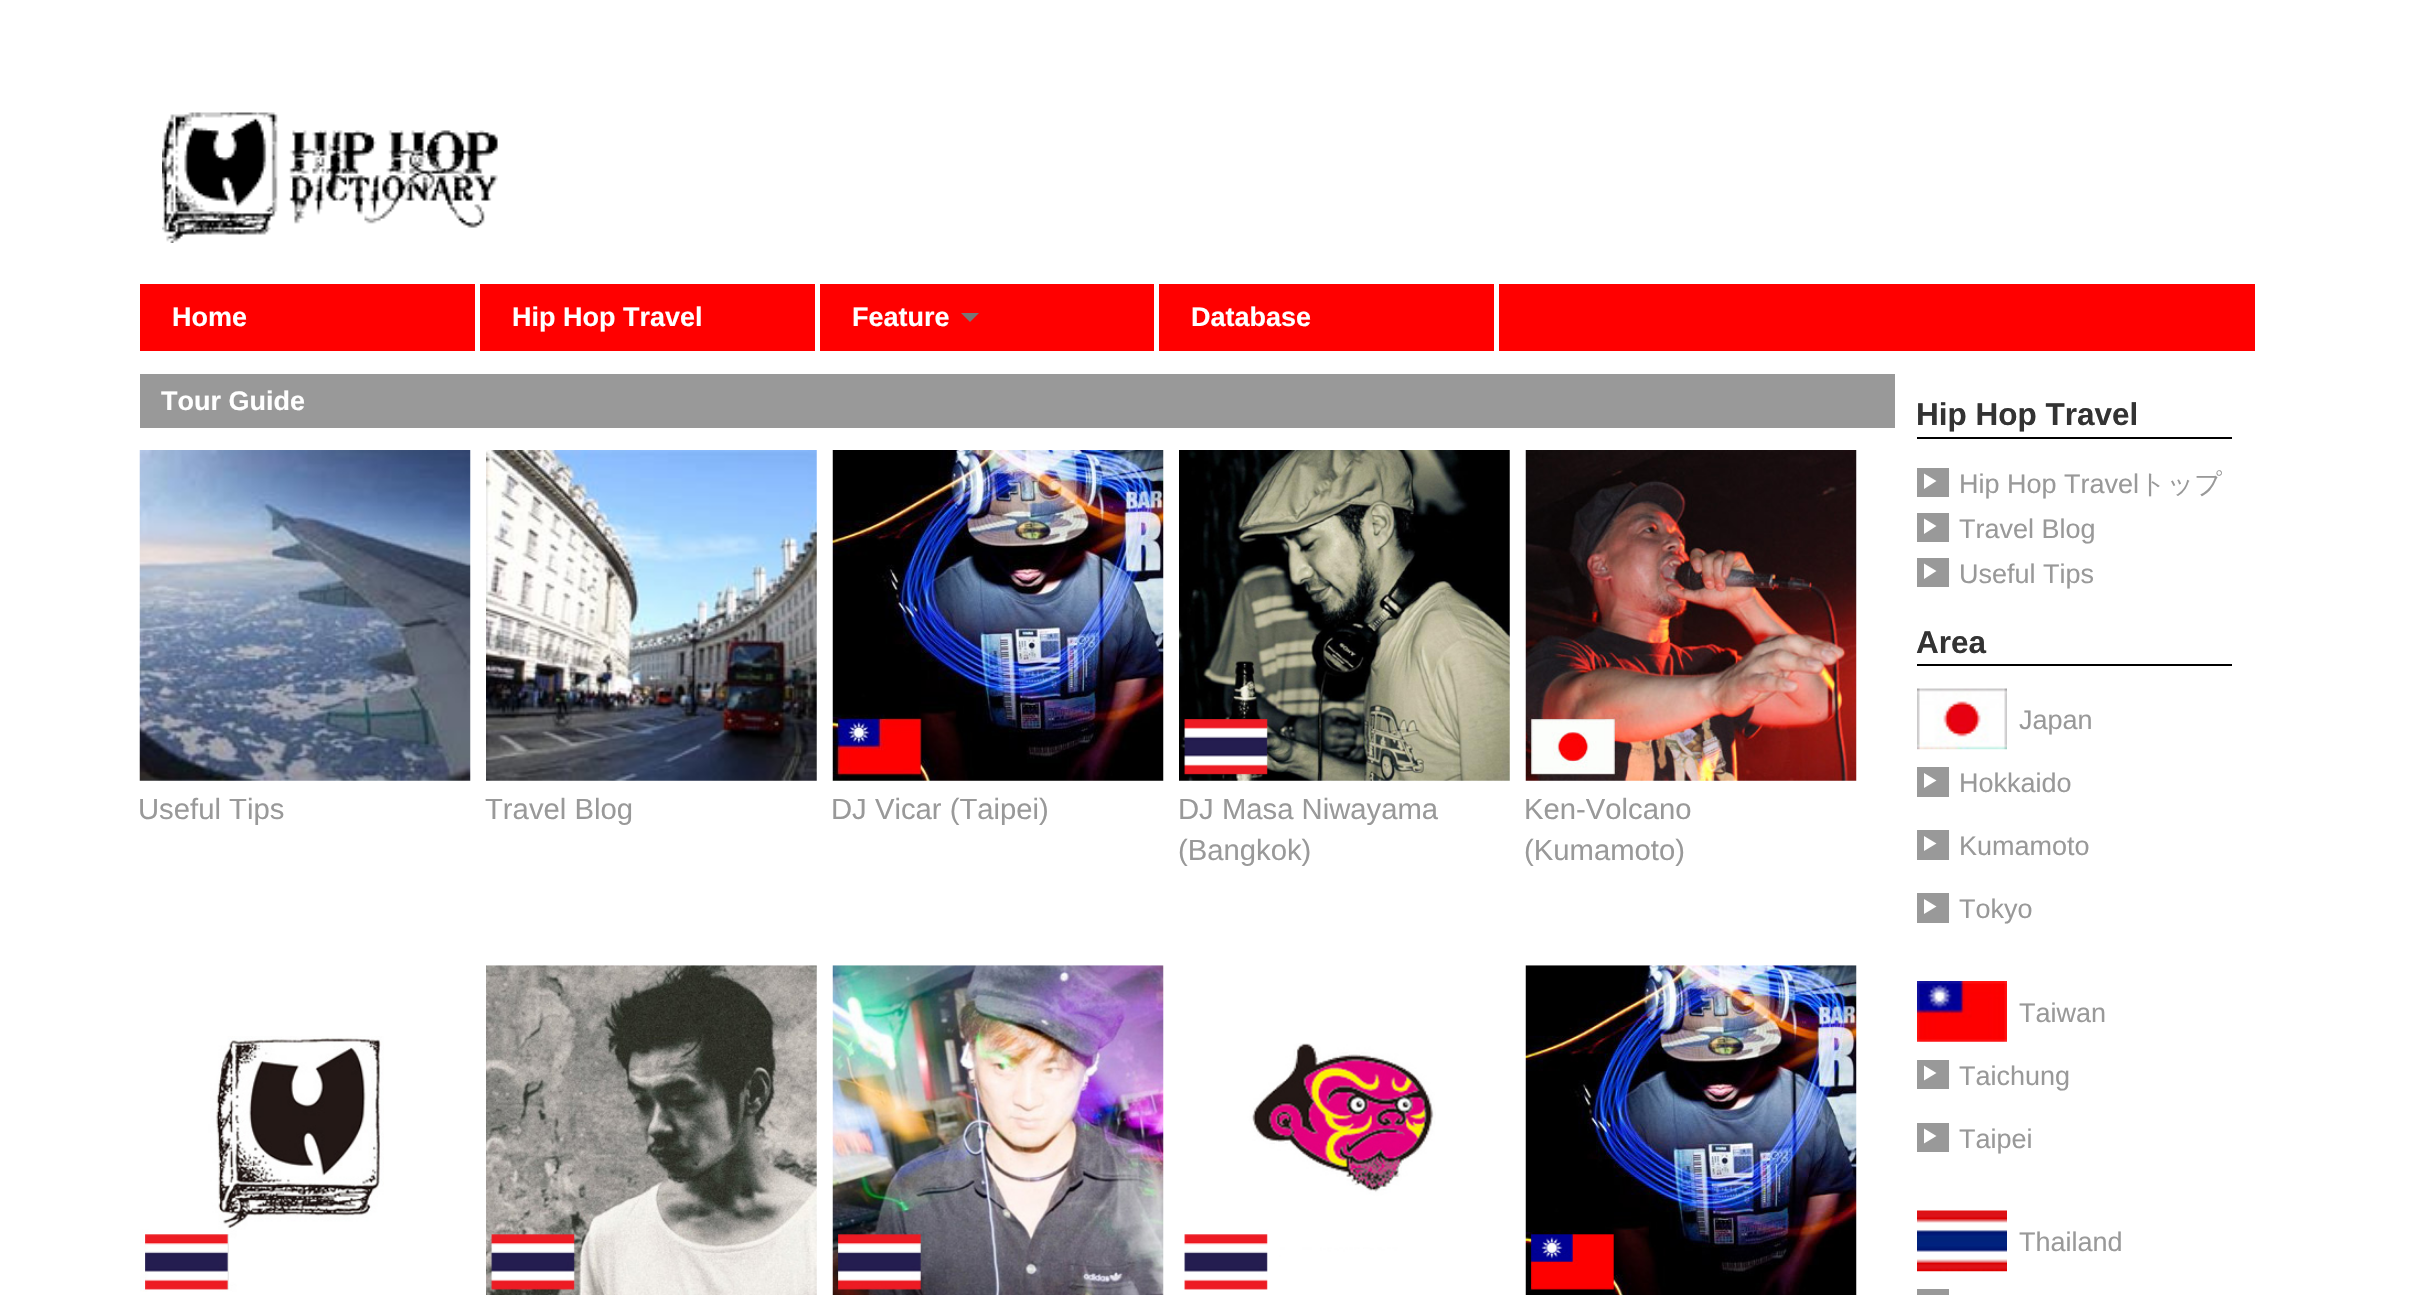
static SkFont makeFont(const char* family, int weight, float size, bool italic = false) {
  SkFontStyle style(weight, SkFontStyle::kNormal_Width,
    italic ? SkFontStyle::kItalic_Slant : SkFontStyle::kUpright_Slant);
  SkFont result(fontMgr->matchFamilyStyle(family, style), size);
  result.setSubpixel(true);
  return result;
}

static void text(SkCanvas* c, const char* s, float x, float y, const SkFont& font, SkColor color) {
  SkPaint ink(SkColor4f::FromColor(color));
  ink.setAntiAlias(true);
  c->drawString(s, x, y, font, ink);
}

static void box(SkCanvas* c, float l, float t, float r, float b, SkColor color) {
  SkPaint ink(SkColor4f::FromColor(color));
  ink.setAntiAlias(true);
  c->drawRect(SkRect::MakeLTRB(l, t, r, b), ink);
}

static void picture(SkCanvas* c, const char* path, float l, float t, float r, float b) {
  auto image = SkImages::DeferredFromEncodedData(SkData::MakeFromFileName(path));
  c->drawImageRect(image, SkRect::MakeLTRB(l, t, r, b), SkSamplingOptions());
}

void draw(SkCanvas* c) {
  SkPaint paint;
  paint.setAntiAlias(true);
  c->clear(0xffffffff);
  picture(c, "img_01.png", 162, 112, 498, 243);
  box(c, 140, 284, 2255, 351, 0xffff0000);
  box(c, 475, 284, 480, 351, 0xffffffff);
  SkFont face1 = makeFont("Liberation Sans", 700, 27);
  text(c, "Home", 172, 326, face1, 0xffffffff);
  box(c, 815, 284, 820, 351, 0xffffffff);
  text(c, "Hip Hop Travel", 512, 326, face1, 0xffffffff);
  box(c, 1154, 284, 1159, 351, 0xffffffff);
  text(c, "Feature", 852, 326, face1, 0xffffffff);
  paint.setColor(0xff777777);
  c->drawPath(SkPathBuilder().moveTo(961, 313).lineTo(979, 313).lineTo(970, 322).close().detach(), paint);
  box(c, 1494, 284, 1499, 351, 0xffffffff);
  text(c, "Database", 1191, 326, face1, 0xffffffff);
  box(c, 140, 374, 1895, 428, 0xff999999);
  text(c, "Tour Guide", 161, 410, face1, 0xffffffff);
  picture(c, "img_02.png", 139, 450, 471, 781);
  SkFont face2 = makeFont("Liberation Sans", 400, 29.25f);
  text(c, "Useful Tips", 138, 819, face2, 0xff999999);
  picture(c, "img_03.png", 486, 450, 817, 781);
  text(c, "Travel Blog", 485, 819, face2, 0xff999999);
  picture(c, "img_04.png", 832, 450, 1164, 781);
  text(c, "DJ Vicar (Taipei)", 831, 819, face2, 0xff999999);
  picture(c, "img_05.png", 1179, 450, 1510, 781);
  text(c, "DJ Masa Niwayama", 1178, 819, face2, 0xff999999);
  text(c, "(Bangkok)", 1178, 860, face2, 0xff999999);
  picture(c, "img_06.png", 1525, 450, 1857, 781);
  text(c, "Ken-Volcano", 1524, 819, face2, 0xff999999);
  text(c, "(Kumamoto)", 1524, 860, face2, 0xff999999);
  picture(c, "img_07.png", 140, 1036, 384, 1292);
  picture(c, "img_08.png", 486, 965, 817, 1295);
  picture(c, "img_09.png", 832, 965, 1164, 1295);
  picture(c, "img_10.png", 1184, 1043, 1436, 1290);
  picture(c, "img_11.png", 1525, 965, 1857, 1295);
  box(c, 1917, 437, 2232, 439, 0xff000000);
  SkFont face3 = makeFont("Liberation Sans", 700, 31.5f);
  text(c, "Hip Hop Travel", 1916, 425, face3, 0xff333333);
  box(c, 1917, 468, 1949, 497, 0xff999999);
  paint.setColor(0xffffffff);
  c->drawPath(SkPathBuilder().moveTo(1924, 489).lineTo(1924, 473.5f).lineTo(1936.5f, 481).close().detach(), paint);
  SkFont face4 = makeFont("Liberation Sans", 400, 27);
  text(c, "Hip Hop Travel", 1959, 493, face4, 0xff999999);
  SkFont face5 = makeFont("WenQuanYi Zen Hei", 500, 27);
  text(c, "トップ", 2139, 493, face5, 0xff999999);
  box(c, 1917, 513, 1949, 542, 0xff999999);
  c->drawPath(SkPathBuilder().moveTo(1924, 534).lineTo(1924, 518.5f).lineTo(1936.5f, 526).close().detach(), paint);
  text(c, "Travel Blog", 1959, 538, face4, 0xff999999);
  box(c, 1917, 558, 1949, 587, 0xff999999);
  c->drawPath(SkPathBuilder().moveTo(1924, 579).lineTo(1924, 563.5f).lineTo(1936.5f, 571).close().detach(), paint);
  text(c, "Useful Tips", 1959, 583, face4, 0xff999999);
  box(c, 1917, 664, 2232, 666, 0xff000000);
  text(c, "Area", 1916, 653, face3, 0xff333333);
  picture(c, "img_12.png", 1917, 688, 2007, 750);
  text(c, "Japan", 2019, 729, face4, 0xff999999);
  box(c, 1917, 767, 1949, 797, 0xff999999);
  c->drawPath(SkPathBuilder().moveTo(1924, 788).lineTo(1924, 773).lineTo(1936.5f, 780.5f).close().detach(), paint);
  text(c, "Hokkaido", 1959, 792, face4, 0xff999999);
  box(c, 1917, 830, 1949, 860, 0xff999999);
  c->drawPath(SkPathBuilder().moveTo(1924, 851).lineTo(1924, 836).lineTo(1936.5f, 843.5f).close().detach(), paint);
  text(c, "Kumamoto", 1959, 855, face4, 0xff999999);
  box(c, 1917, 893, 1949, 923, 0xff999999);
  c->drawPath(SkPathBuilder().moveTo(1924, 914).lineTo(1924, 899).lineTo(1936.5f, 906.5f).close().detach(), paint);
  text(c, "Tokyo", 1959, 918, face4, 0xff999999);
  picture(c, "img_13.png", 1917, 981, 2007, 1042);
  text(c, "Taiwan", 2019, 1022, face4, 0xff999999);
  box(c, 1917, 1060, 1949, 1089, 0xff999999);
  c->drawPath(SkPathBuilder().moveTo(1924, 1080.5f).lineTo(1924, 1065.5f).lineTo(1936.5f, 1073).close().detach(), paint);
  text(c, "Taichung", 1959, 1085, face4, 0xff999999);
  box(c, 1917, 1123, 1949, 1152, 0xff999999);
  c->drawPath(SkPathBuilder().moveTo(1924, 1143.5f).lineTo(1924, 1128.5f).lineTo(1936.5f, 1136).close().detach(), paint);
  text(c, "Taipei", 1959, 1148, face4, 0xff999999);
  picture(c, "img_14.png", 1917, 1210, 2007, 1272);
  text(c, "Thailand", 2019, 1251, face4, 0xff999999);
  box(c, 1917, 1289, 1949, 1295, 0xff999999);
}
